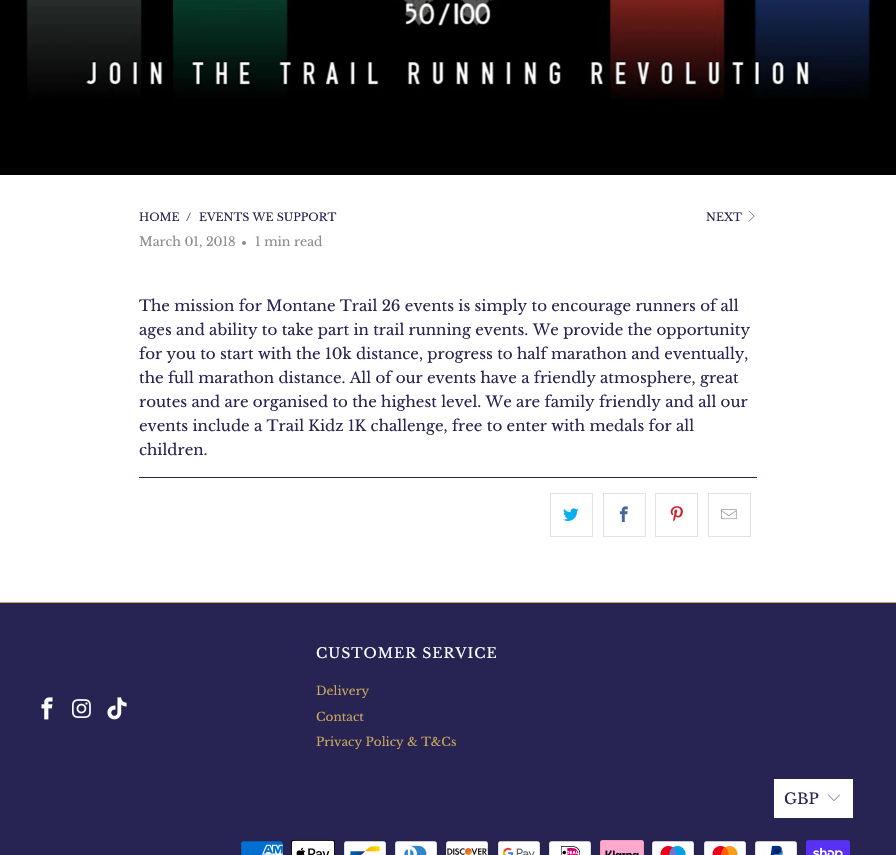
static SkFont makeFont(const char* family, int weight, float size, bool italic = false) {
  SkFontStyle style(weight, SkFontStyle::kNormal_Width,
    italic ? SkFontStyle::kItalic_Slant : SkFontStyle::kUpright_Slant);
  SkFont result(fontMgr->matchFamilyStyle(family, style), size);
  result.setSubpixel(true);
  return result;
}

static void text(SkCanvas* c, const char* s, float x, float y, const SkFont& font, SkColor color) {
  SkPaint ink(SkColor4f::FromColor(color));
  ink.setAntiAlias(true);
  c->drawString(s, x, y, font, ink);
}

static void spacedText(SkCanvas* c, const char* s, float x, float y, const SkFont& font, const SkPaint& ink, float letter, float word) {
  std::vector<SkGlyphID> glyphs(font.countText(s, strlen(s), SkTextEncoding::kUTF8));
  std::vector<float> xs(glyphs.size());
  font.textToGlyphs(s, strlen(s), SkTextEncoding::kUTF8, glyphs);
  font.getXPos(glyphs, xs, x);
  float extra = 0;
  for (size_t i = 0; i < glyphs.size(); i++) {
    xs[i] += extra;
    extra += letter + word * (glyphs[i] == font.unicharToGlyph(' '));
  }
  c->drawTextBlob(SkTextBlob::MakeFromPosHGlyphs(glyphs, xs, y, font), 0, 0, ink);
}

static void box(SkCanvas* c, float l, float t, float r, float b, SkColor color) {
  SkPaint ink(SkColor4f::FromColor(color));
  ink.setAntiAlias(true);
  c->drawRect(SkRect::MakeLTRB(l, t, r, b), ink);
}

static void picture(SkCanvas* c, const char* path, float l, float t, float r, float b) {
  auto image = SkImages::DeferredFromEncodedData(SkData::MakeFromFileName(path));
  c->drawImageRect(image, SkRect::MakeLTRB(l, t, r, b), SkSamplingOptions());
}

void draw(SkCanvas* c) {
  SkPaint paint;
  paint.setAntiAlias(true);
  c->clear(0xffffffff);
  box(c, 0, 0, 896, 175, 0xff000000);
  picture(c, "img_01.png", 26, 0, 871, 99);
  SkFont face1 = makeFont("Libre Baskerville", 400, 11);
  text(c, "HOME", 139, 221, face1, 0xff272453);
  text(c, "/", 186, 221, face1, 0xff272453);
  text(c, "EVENTS WE SUPPORT", 199, 221, face1, 0xff272453);
  text(c, "NEXT", 706, 221, face1, 0xff272453);
  picture(c, "img_02.png", 748, 210, 755, 222);
  SkFont face2 = makeFont("Libre Baskerville", 400, 12.5f);
  text(c, "March 01, 2018", 139, 246, face2, 0xff8c8b8b);
  paint.setColor(0xff8c8b8b);
  c->drawCircle(244, 243, 2, paint);
  text(c, "1 min read", 255, 246, face2, 0xff8c8b8b);
  SkFont face3 = makeFont("Libre Baskerville", 400, 15);
  text(c, "The mission for Montane Trail 26 events is simply to encourage runners of all", 139, 311, face3, 0xff272453);
  text(c, "ages and ability to take part in trail running events. We provide the opportunity", 139, 335, face3, 0xff272453);
  text(c, "for you to start with the 10k distance, progress to half marathon and eventually,", 139, 359, face3, 0xff272453);
  text(c, "the full marathon distance. All of our events have a friendly atmosphere, great", 139, 383, face3, 0xff272453);
  text(c, "routes and are organised to the highest level. We are family friendly and all our", 139, 407, face3, 0xff272453);
  text(c, "events include a Trail Kidz 1K challenge, free to enter with medals for all", 139, 431, face3, 0xff272453);
  text(c, "children.", 139, 455, face3, 0xff272453);
  box(c, 139, 477, 757, 478, 0xff272453);
  paint.setStyle(SkPaint::kStroke_Style);
  paint.setStrokeWidth(1);
  paint.setColor(0xffe2e2e2);
  c->drawRect(SkRect::MakeLTRB(550.5f, 493.5f, 592.5f, 536.5f), paint);
  picture(c, "img_03.png", 563, 508, 579, 521);
  c->drawRect(SkRect::MakeLTRB(603.5f, 493.5f, 645.5f, 536.5f), paint);
  picture(c, "img_04.png", 619, 506, 628, 522);
  c->drawRect(SkRect::MakeLTRB(655.5f, 493.5f, 697.5f, 536.5f), paint);
  picture(c, "img_05.png", 670, 506, 683, 522);
  c->drawRect(SkRect::MakeLTRB(708.5f, 493.5f, 750.5f, 536.5f), paint);
  picture(c, "img_06.png", 721, 509, 737, 520);
  box(c, 0, 603, 896, 855, 0xff272453);
  box(c, 0, 602, 896, 603, 0xffc7a55d);
  picture(c, "img_07.png", 41, 697, 53, 720);
  picture(c, "img_08.png", 72, 699, 91, 718);
  picture(c, "img_09.png", 107, 697, 127, 720);
  SkFont face4 = makeFont("Libre Baskerville", 400, 14);
  paint.setStyle(SkPaint::kFill_Style);
  paint.setColor(0xffffffff);
  spacedText(c, "CUSTOMER SERVICE", 316, 658, face4, paint, 1, 0);
  SkFont face5 = makeFont("Libre Baskerville", 400, 12);
  text(c, "Delivery", 316, 695, face5, 0xffc7a55d);
  text(c, "Contact", 316, 721, face5, 0xffc7a55d);
  text(c, "Privacy Policy & T&Cs", 316, 746, face5, 0xffc7a55d);
  box(c, 774, 779, 853, 818, 0xffffffff);
  text(c, "GBP", 784, 804, face3, 0xff272453);
  picture(c, "img_10.png", 828, 794, 840, 801);
  picture(c, "img_11.png", 240, 840, 284, 855);
  picture(c, "img_12.png", 291, 839, 335, 855);
  picture(c, "img_13.png", 343, 840, 387, 855);
  picture(c, "img_14.png", 394, 840, 438, 855);
  picture(c, "img_15.png", 445, 840, 489, 855);
  picture(c, "img_16.png", 497, 840, 541, 855);
  picture(c, "img_17.png", 548, 840, 592, 855);
  picture(c, "img_18.png", 600, 840, 644, 855);
  picture(c, "img_19.png", 651, 840, 695, 855);
  picture(c, "img_20.png", 703, 840, 747, 855);
  picture(c, "img_21.png", 754, 840, 798, 855);
  picture(c, "img_22.png", 806, 840, 850, 855);
}
